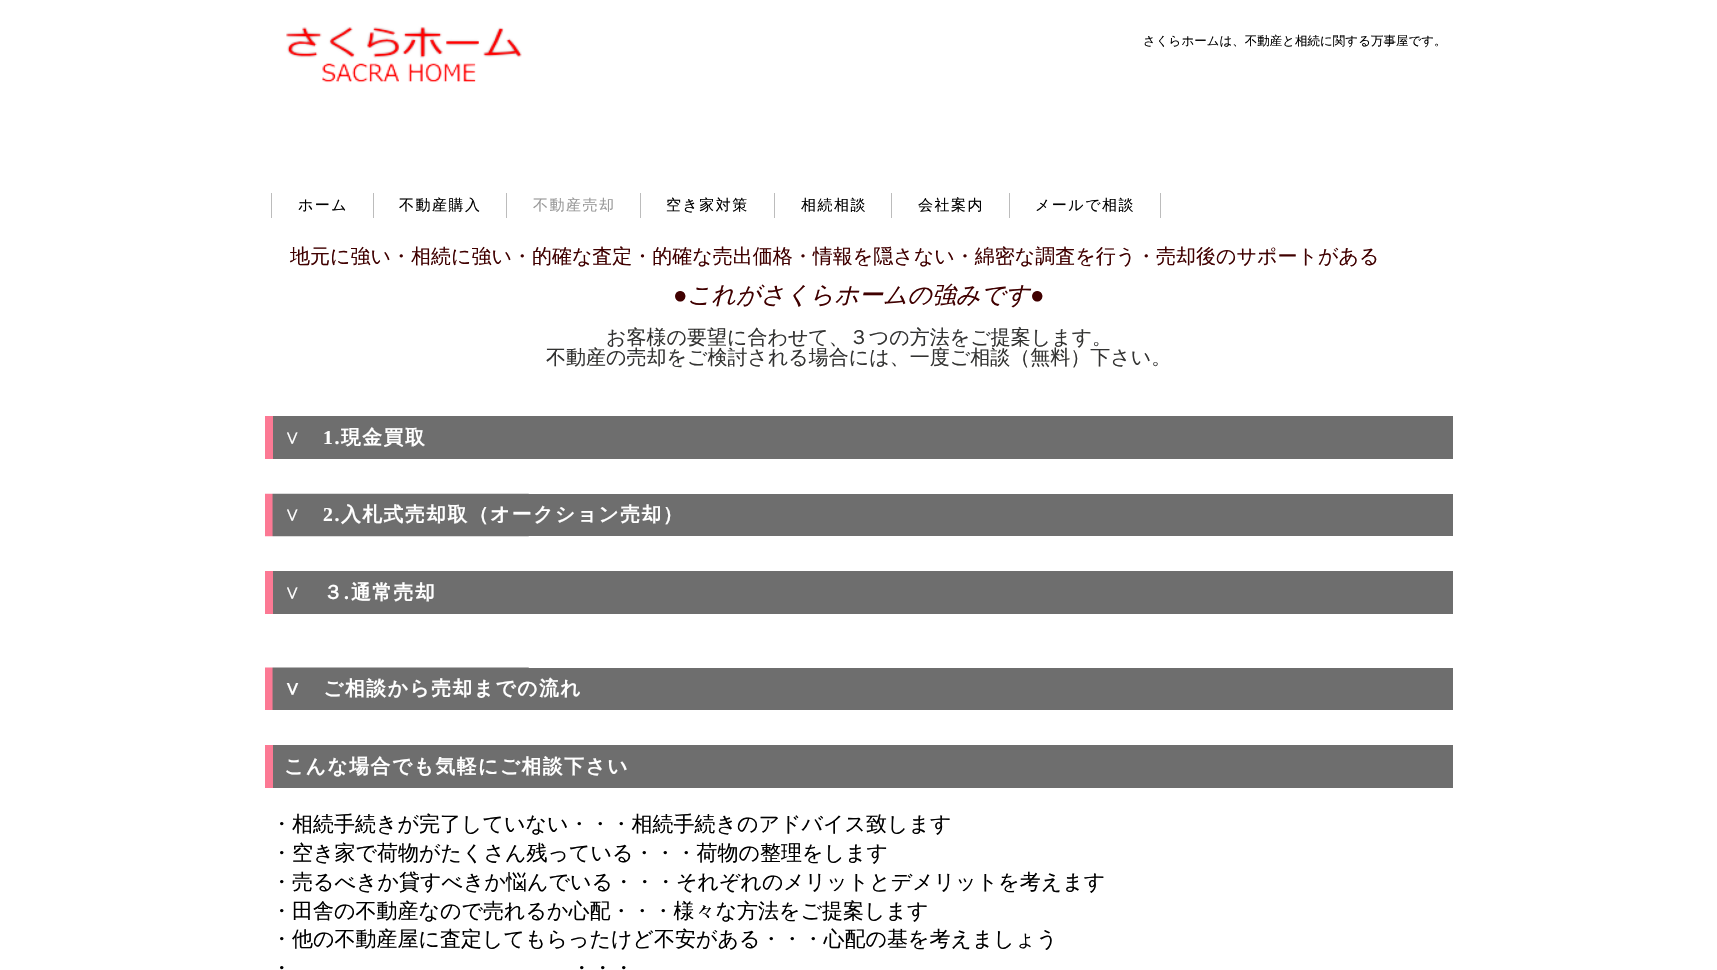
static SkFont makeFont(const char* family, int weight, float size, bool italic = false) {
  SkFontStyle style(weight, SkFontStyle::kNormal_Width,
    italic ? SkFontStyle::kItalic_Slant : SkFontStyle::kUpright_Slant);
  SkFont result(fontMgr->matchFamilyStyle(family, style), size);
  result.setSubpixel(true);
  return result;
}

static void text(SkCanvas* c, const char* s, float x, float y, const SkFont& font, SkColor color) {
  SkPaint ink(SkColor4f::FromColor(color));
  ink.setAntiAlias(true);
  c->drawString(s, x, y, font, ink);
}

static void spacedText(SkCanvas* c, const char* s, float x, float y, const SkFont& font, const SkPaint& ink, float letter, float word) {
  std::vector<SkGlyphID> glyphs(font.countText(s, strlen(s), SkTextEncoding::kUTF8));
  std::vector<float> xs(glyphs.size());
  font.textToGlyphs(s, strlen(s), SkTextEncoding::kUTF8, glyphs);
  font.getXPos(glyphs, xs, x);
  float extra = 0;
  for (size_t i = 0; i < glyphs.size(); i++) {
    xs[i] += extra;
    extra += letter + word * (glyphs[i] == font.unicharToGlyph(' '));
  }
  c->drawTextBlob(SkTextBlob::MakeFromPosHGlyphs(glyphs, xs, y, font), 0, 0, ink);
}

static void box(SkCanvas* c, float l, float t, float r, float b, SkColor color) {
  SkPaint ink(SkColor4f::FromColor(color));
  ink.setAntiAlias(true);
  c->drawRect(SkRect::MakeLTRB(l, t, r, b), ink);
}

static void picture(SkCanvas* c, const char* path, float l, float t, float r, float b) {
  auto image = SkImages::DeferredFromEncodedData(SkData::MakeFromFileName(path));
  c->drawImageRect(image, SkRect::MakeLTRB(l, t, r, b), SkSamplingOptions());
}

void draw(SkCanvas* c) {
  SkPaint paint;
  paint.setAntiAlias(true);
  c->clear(0xffffffff);
  picture(c, "img_01.png", 286, 26, 522, 83);
  SkFont face1 = makeFont("WenQuanYi Zen Hei", 500, 12.5f);
  text(c, "さくらホームは、不動産と相続に関する万事屋です。", 1143, 45, face1, 0xff000000);
  box(c, 271, 193, 272, 218, 0xffbcbcbc);
  box(c, 373, 193, 374, 218, 0xffbcbcbc);
  SkFont face2 = makeFont("WenQuanYi Zen Hei", 500, 15);
  paint.setColor(0xff000000);
  spacedText(c, "ホーム", 298, 210, face2, paint, 1.5f, 0);
  box(c, 506, 193, 507, 218, 0xffbcbcbc);
  spacedText(c, "不動産購入", 399, 210, face2, paint, 1.5f, 0);
  box(c, 640, 193, 641, 218, 0xffbcbcbc);
  paint.setColor(0xff999999);
  spacedText(c, "不動産売却", 533, 210, face2, paint, 1.5f, 0);
  box(c, 774, 193, 775, 218, 0xffbcbcbc);
  paint.setColor(0xff000000);
  spacedText(c, "空き家対策", 666, 210, face2, paint, 1.5f, 0);
  box(c, 891, 193, 892, 218, 0xffbcbcbc);
  spacedText(c, "相続相談", 801, 210, face2, paint, 1.5f, 0);
  box(c, 1009, 193, 1010, 218, 0xffbcbcbc);
  spacedText(c, "会社案内", 918, 210, face2, paint, 1.5f, 0);
  box(c, 1160, 193, 1161, 218, 0xffbcbcbc);
  spacedText(c, "メールで相談", 1035, 210, face2, paint, 1.5f, 0);
  SkFont face3 = makeFont("WenQuanYi Zen Hei", 500, 20);
  text(c, "地元に強い・相続に強い・的確な査定・的確な売出価格・情報を隠さない・綿密な調査を行う・売却後のサポートがある", 290, 263, face3, 0xff400000);
  SkFont face4 = makeFont("Liberation Serif", 400, 24, true);
  text(c, "●", 673, 303, face4, 0xff400000);
  SkFont face5 = makeFont("WenQuanYi Zen Hei", 500, 24, true);
  text(c, "これがさくらホームの強みです", 687, 303, face5, 0xff400000);
  text(c, "●", 1030, 303, face4, 0xff400000);
  text(c, "お客様の要望に合わせて、３つの方法をご提案します。", 606, 344, face3, 0xff333332);
  text(c, "不動産の売却をご検討される場合には、一度ご相談（無料）下さい。", 546, 364, face3, 0xff333332);
  box(c, 273, 416, 1453, 459, 0xff6e6e6e);
  box(c, 265, 416, 273, 459, 0xfffc7994);
  SkFont face6 = makeFont("WenQuanYi Zen Hei", 500, 19.7f);
  paint.setColor(0xffffffff);
  spacedText(c, "∨", 284, 444, face6, paint, 1.6f, 0);
  SkFont face7 = makeFont("Liberation Serif", 700, 19.7f);
  spacedText(c, "1.", 323, 444, face7, paint, 1.6f, 0);
  SkFont face8 = makeFont("WenQuanYi Zen Hei", 700, 19.7f);
  spacedText(c, "現金買取", 341, 444, face8, paint, 1.6f, 0);
  box(c, 528, 494, 1453, 536, 0xff6e6e6e);
  picture(c, "img_02.png", 265, 493, 529, 537);
  spacedText(c, "∨", 284, 521, face6, paint, 1.6f, 0);
  spacedText(c, "2.", 323, 521, face7, paint, 1.6f, 0);
  spacedText(c, "入札式売却取（オークション売却）", 341, 521, face8, paint, 1.6f, 0);
  box(c, 273, 571, 1453, 614, 0xff6e6e6e);
  box(c, 265, 571, 273, 614, 0xfffc7994);
  spacedText(c, "∨", 284, 599, face6, paint, 1.6f, 0);
  spacedText(c, "３", 323, 599, face8, paint, 1.6f, 0);
  spacedText(c, ".", 344, 599, face7, paint, 1.6f, 0);
  spacedText(c, "通常売却", 351, 599, face8, paint, 1.6f, 0);
  box(c, 528, 668, 1453, 710, 0xff6e6e6e);
  picture(c, "img_03.png", 265, 667, 529, 710);
  spacedText(c, "∨　ご相談から売却までの流れ", 284, 695, face8, paint, 1.6f, 0);
  box(c, 273, 745, 1453, 788, 0xff6e6e6e);
  box(c, 265, 745, 273, 788, 0xfffc7994);
  spacedText(c, "こんな場合でも気軽にご相談下さい", 284, 773, face8, paint, 1.6f, 0);
  SkFont face9 = makeFont("WenQuanYi Zen Hei", 500, 21);
  text(c, "・相続手続きが完了していない・・・相続手続きのアドバイス致します", 271, 831, face9, 0xff000000);
  text(c, "・空き家で荷物がたくさん残っている・・・荷物の整理をします", 271, 860, face9, 0xff000000);
  text(c, "・売るべきか貸すべきか悩んでいる・・・それぞれのメリットとデメリットを考えます", 271, 889, face9, 0xff000000);
  text(c, "・田舎の不動産なので売れるか心配・・・様々な方法をご提案します", 271, 918, face9, 0xff000000);
  text(c, "・他の不動産屋に査定してもらったけど不安がある・・・心配の基を考えましょう", 271, 946, face9, 0xff000000);
  text(c, "・", 271, 975, face9, 0xff000000);
  text(c, "・・・", 571, 975, face9, 0xff000000);
}
